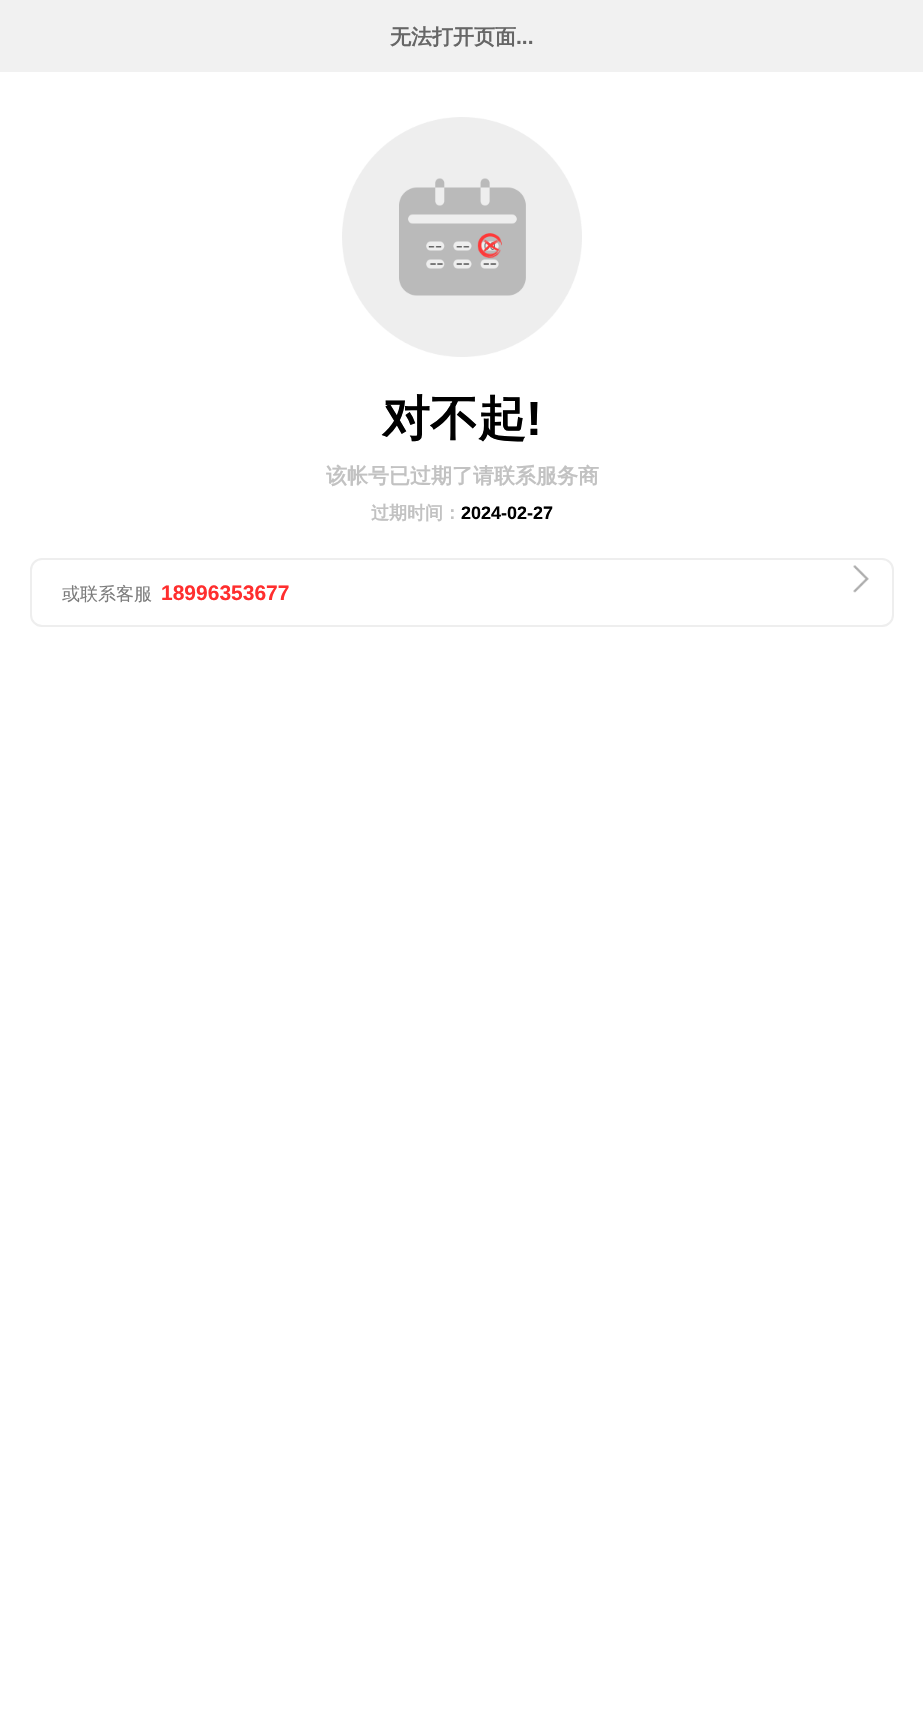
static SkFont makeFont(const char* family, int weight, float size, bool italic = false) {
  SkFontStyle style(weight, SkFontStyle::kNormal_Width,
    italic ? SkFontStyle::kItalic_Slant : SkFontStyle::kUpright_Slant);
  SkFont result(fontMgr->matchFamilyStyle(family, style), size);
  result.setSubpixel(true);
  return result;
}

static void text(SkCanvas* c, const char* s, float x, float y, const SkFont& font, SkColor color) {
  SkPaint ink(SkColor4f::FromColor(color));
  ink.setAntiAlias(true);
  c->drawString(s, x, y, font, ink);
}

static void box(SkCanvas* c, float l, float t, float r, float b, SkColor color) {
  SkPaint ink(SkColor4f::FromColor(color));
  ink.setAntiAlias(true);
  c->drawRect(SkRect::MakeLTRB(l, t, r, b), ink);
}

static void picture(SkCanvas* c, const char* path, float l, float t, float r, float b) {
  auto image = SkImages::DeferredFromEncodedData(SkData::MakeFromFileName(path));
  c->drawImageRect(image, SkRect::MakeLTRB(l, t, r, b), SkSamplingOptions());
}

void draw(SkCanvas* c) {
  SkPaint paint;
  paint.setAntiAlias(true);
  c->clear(0xffffffff);
  box(c, 0, 0, 923, 72, 0xfff1f1f1);
  SkFont face1 = makeFont("WenQuanYi Zen Hei", 700, 21);
  text(c, "无法打开页面", 390, 44, face1, 0xff666666);
  SkFont face2 = makeFont("Liberation Sans", 700, 21);
  text(c, "...", 516, 44, face2, 0xff666666);
  picture(c, "img_01.png", 342, 117, 582, 357);
  SkFont face3 = makeFont("WenQuanYi Zen Hei", 700, 48);
  text(c, "对不起", 382, 435, face3, 0xff000000);
  SkFont face4 = makeFont("Liberation Sans", 700, 48);
  text(c, "!", 526, 435, face4, 0xff000000);
  text(c, "该帐号已过期了请联系服务商", 326, 483, face1, 0xffc2c2c2);
  SkFont face5 = makeFont("WenQuanYi Zen Hei", 700, 18);
  text(c, "过期时间：", 371, 519, face5, 0xffc2c2c2);
  SkFont face6 = makeFont("Liberation Sans", 700, 18);
  text(c, "2024-02-27", 461, 519, face6, 0xff000000);
  paint.setStyle(SkPaint::kStroke_Style);
  paint.setStrokeWidth(2);
  paint.setColor(0xffeeeeee);
  c->drawRoundRect(SkRect::MakeLTRB(31, 559, 893, 626), 11, 11, paint);
  SkFont face7 = makeFont("WenQuanYi Zen Hei", 500, 18);
  text(c, "或联系客服", 62, 600, face7, 0xff7c7c7c);
  text(c, "18996353677", 161, 600, face2, 0xffff2e2e);
  picture(c, "img_02.png", 853, 565, 869, 593);
}
